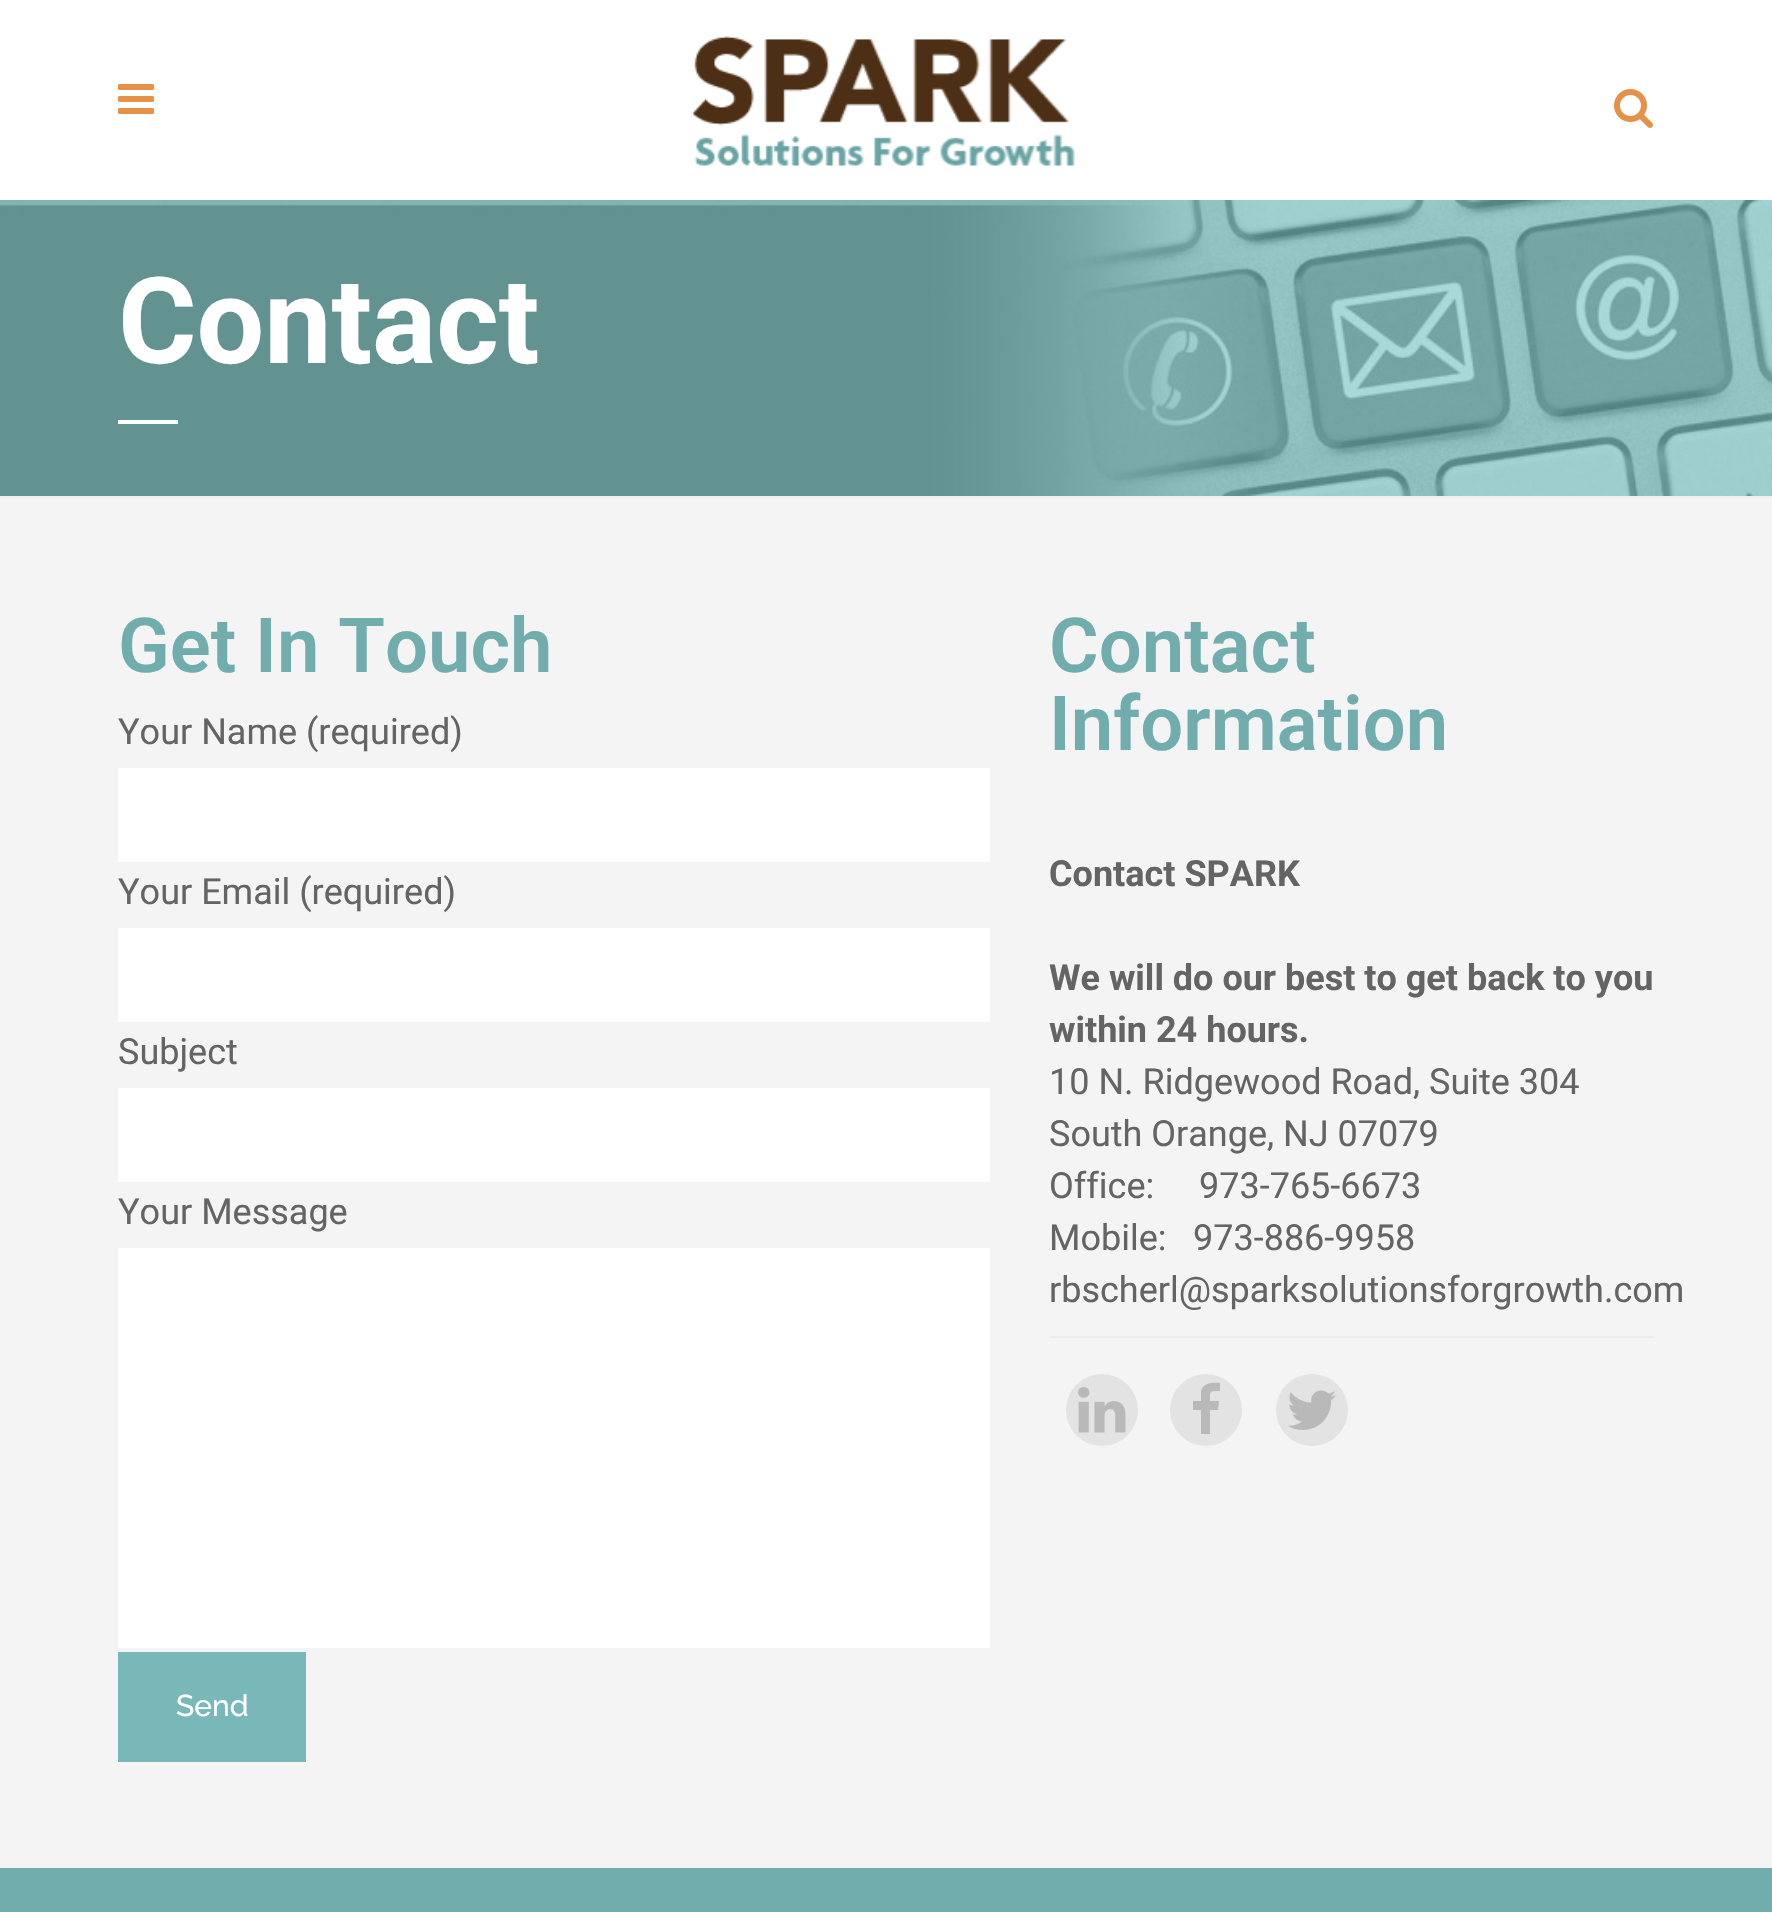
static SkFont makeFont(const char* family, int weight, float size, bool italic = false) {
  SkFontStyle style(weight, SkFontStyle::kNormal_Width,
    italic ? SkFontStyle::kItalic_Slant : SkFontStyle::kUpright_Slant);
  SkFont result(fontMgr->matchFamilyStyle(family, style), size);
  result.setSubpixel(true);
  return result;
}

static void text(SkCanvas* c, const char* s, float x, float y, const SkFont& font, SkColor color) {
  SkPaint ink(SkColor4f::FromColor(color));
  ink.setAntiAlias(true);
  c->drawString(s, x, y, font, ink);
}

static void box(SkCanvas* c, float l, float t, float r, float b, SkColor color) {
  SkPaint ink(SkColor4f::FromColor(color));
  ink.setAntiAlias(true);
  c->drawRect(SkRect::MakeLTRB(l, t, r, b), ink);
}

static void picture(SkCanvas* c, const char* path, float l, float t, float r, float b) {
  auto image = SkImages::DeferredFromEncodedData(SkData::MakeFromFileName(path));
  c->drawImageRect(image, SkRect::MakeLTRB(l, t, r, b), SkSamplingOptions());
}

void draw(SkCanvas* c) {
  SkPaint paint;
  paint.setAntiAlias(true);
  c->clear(0xfff4f4f4);
  box(c, 0, 0, 1772, 200, 0xffffffff);
  picture(c, "img_01.png", 118, 84, 154, 114);
  picture(c, "img_02.png", 691, 36, 1075, 166);
  picture(c, "img_03.png", 1614, 89, 1653, 128);
  box(c, 0, 496, 1772, 498, 0xffeeeeee);
  picture(c, "img_04.png", 0, 200, 1772, 496);
  SkFont face1 = makeFont("Roboto", 700, 120);
  text(c, "Contact", 118, 363, face1, 0xffffffff);
  box(c, 118, 420, 178, 424, 0xffffffff);
  SkFont face2 = makeFont("Roboto", 600, 76);
  text(c, "Get In Touch", 118, 672, face2, 0xff71adad);
  SkFont face3 = makeFont("Roboto", 400, 36);
  text(c, "Your Name (required)", 118, 744, face3, 0xff646464);
  box(c, 118, 768, 990, 862, 0xffffffff);
  text(c, "Your Email (required)", 118, 904, face3, 0xff646464);
  box(c, 118, 928, 990, 1022, 0xffffffff);
  text(c, "Subject", 118, 1064, face3, 0xff646464);
  box(c, 118, 1088, 990, 1182, 0xffffffff);
  text(c, "Your Message", 118, 1224, face3, 0xff646464);
  box(c, 118, 1248, 990, 1648, 0xffffffff);
  box(c, 118, 1652, 306, 1762, 0xff79b8b8);
  SkFont face4 = makeFont("Raleway", 500, 30);
  text(c, "Send", 176, 1716, face4, 0xffffffff);
  text(c, "Contact", 1049, 672, face2, 0xff71adad);
  text(c, "Information", 1049, 750, face2, 0xff71adad);
  SkFont face5 = makeFont("Roboto", 700, 36);
  text(c, "Contact SPARK", 1049, 886, face5, 0xff646464);
  text(c, "We will do our best to get back to you", 1049, 990, face5, 0xff646464);
  text(c, "within 24 hours.", 1049, 1042, face5, 0xff646464);
  text(c, "10 N. Ridgewood Road, Suite 304", 1049, 1094, face3, 0xff646464);
  text(c, "South Orange, NJ 07079", 1049, 1146, face3, 0xff646464);
  text(c, "Office:", 1049, 1198, face3, 0xff646464);
  text(c, "973-765-6673", 1199, 1198, face3, 0xff646464);
  text(c, "Mobile:", 1049, 1250, face3, 0xff646464);
  text(c, "973-886-9958", 1193, 1250, face3, 0xff646464);
  text(c, "rbscherl@sparksolutionsforgrowth.com", 1049, 1302, face3, 0xff646464);
  box(c, 1050, 1336, 1654, 1338, 0xffeaeaea);
  paint.setColor(0xffe3e3e3);
  c->drawCircle(1102, 1410, 36, paint);
  picture(c, "img_05.png", 1078, 1387, 1126, 1433);
  c->drawCircle(1206, 1410, 36, paint);
  paint.setColor(0xffb9b9b9);
  c->drawPath(SkPathBuilder().moveTo(1220, 1383).lineTo(1220, 1391).cubicTo(1209, 1391, 1210, 1391, 1210, 1401).lineTo(1219, 1401).lineTo(1218, 1410).lineTo(1210, 1410).lineTo(1210, 1434).lineTo(1201, 1434).lineTo(1201, 1410).lineTo(1193, 1410).lineTo(1193, 1401).lineTo(1201, 1401).lineTo(1201, 1392).cubicTo(1202, 1383, 1212, 1382, 1220, 1383).close().detach(), paint);
  paint.setColor(0xffe3e3e3);
  c->drawCircle(1312, 1410, 36, paint);
  picture(c, "img_06.png", 1287, 1390, 1336, 1430);
  box(c, 0, 1868, 1772, 1912, 0xff71adad);
}
